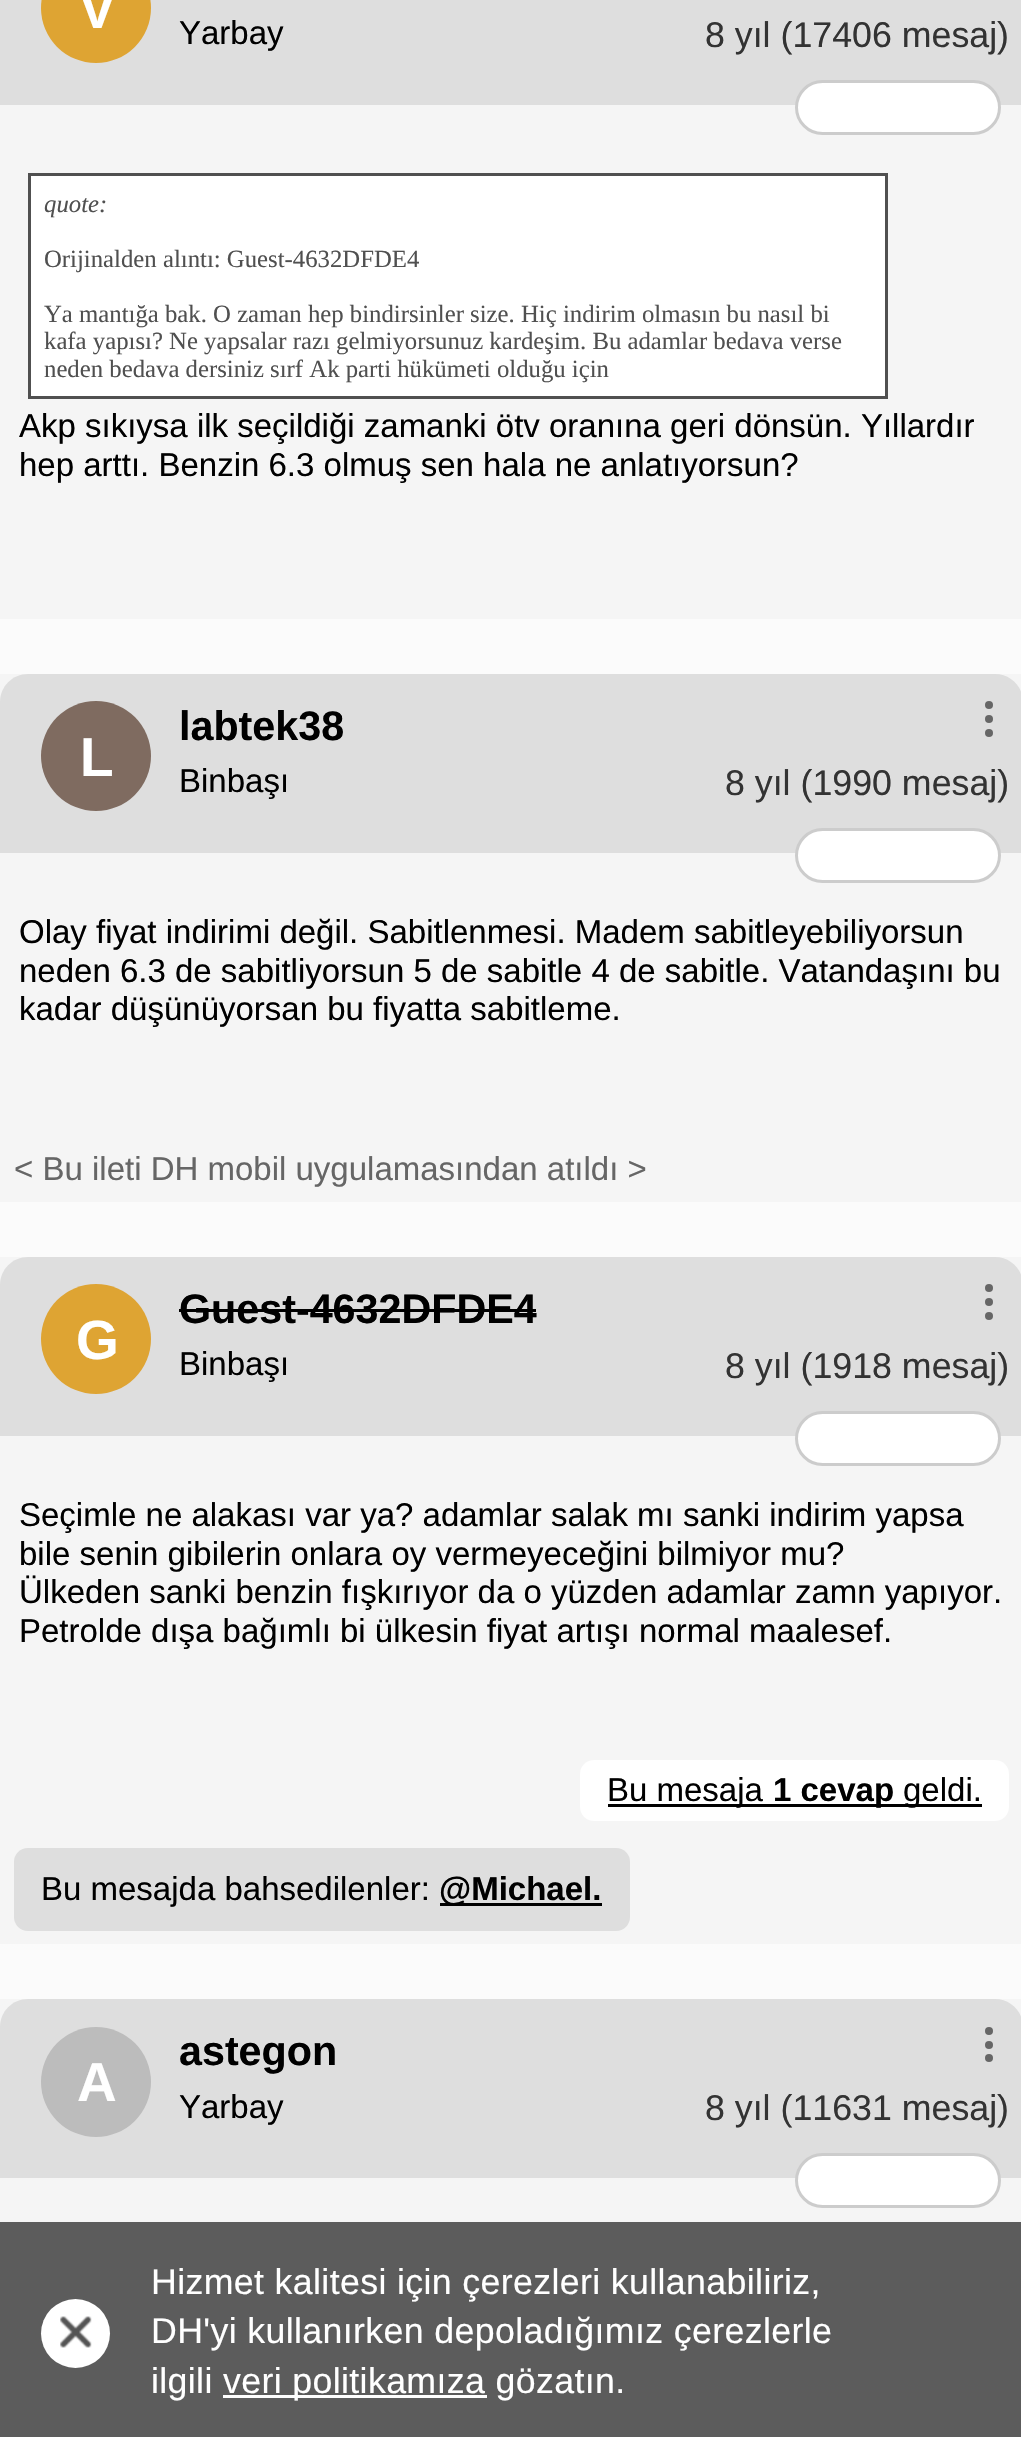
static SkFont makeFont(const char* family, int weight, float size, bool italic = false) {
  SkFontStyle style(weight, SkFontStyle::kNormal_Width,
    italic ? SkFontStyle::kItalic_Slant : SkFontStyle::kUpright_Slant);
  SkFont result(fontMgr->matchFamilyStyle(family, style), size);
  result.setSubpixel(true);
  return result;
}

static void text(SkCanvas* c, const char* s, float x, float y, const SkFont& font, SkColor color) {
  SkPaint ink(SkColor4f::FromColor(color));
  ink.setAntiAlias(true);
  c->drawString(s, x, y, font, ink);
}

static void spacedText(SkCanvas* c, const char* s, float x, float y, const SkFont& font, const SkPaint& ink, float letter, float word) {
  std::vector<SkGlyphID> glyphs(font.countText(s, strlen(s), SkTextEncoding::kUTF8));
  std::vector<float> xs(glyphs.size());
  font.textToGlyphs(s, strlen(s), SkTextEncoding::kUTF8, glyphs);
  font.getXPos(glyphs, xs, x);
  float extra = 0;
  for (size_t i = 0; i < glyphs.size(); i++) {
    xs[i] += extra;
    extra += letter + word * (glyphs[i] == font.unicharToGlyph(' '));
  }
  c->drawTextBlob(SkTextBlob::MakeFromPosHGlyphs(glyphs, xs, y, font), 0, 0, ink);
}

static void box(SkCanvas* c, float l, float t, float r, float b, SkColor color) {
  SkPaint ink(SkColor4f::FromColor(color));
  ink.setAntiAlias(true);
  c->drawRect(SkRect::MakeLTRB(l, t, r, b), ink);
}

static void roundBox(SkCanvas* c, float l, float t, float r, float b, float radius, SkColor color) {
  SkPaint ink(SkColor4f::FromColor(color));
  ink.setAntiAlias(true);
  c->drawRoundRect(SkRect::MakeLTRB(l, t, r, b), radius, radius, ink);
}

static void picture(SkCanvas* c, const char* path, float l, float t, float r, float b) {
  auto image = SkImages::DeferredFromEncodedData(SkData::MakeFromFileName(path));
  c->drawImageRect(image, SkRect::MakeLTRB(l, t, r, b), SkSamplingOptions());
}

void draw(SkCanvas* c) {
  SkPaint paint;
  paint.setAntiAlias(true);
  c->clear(0xfffbfbfb);
  box(c, 0, 0, 1021, 105, 0xffdedede);
  paint.setColor(0xffdea433);
  c->drawCircle(96, 8, 55, paint);
  SkFont face1 = makeFont("Liberation Sans", 700, 55);
  paint.setColor(0xffffffff);
  spacedText(c, "V", 79, 28, face1, paint, -2, 0);
  SkFont face2 = makeFont("Liberation Sans", 400, 33);
  text(c, "Yarbay", 179, 44, face2, 0xff000000);
  SkFont face3 = makeFont("Liberation Sans", 400, 35.75f);
  text(c, "8 yıl (17406 mesaj)", 705, 47, face3, 0xff333333);
  box(c, 0, 105, 1021, 619, 0xfff5f5f5);
  c->drawRoundRect(SkRect::MakeLTRB(796.5f, 81.5f, 999.5f, 133.5f), 26, 26, paint);
  paint.setStyle(SkPaint::kStroke_Style);
  paint.setStrokeWidth(3);
  paint.setColor(0xffcccccc);
  c->drawRoundRect(SkRect::MakeLTRB(796.5f, 81.5f, 999.5f, 133.5f), 26, 26, paint);
  paint.setStyle(SkPaint::kFill_Style);
  paint.setColor(0xffffffff);
  c->drawRect(SkRect::MakeLTRB(29.5f, 174.5f, 886.5f, 397.5f), paint);
  paint.setStyle(SkPaint::kStroke_Style);
  paint.setColor(0xff505050);
  c->drawRect(SkRect::MakeLTRB(29.5f, 174.5f, 886.5f, 397.5f), paint);
  SkFont face4 = makeFont("Liberation Serif", 400, 24.75f, true);
  text(c, "quote:", 44, 212, face4, 0xff505050);
  SkFont face5 = makeFont("Liberation Serif", 400, 24.75f);
  text(c, "Orijinalden alıntı: Guest-4632DFDE4", 44, 267, face5, 0xff505050);
  text(c, "Ya mantığa bak. O zaman hep bindirsinler size. Hiç indirim olmasın bu nasıl bi", 44, 322, face5, 0xff505050);
  text(c, "kafa yapısı? Ne yapsalar razı gelmiyorsunuz kardeşim. Bu adamlar bedava verse", 44, 349, face5, 0xff505050);
  text(c, "neden bedava dersiniz sırf Ak parti hükümeti olduğu için", 44, 377, face5, 0xff505050);
  text(c, "Akp sıkıysa ilk seçildiği zamanki ötv oranına geri dönsün. Yıllardır", 19, 437, face2, 0xff000000);
  text(c, "hep arttı. Benzin 6.3 olmuş sen hala ne anlatıyorsun?", 19, 476, face2, 0xff000000);
  box(c, 0, 674, 1021, 1202, 0xfff5f5f5);
  paint.setStyle(SkPaint::kFill_Style);
  paint.setColor(0xffdedede);
  c->drawPath(SkPathBuilder().moveTo(28, 674).lineTo(995, 674).cubicTo(1010.5f, 674, 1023, 686.5f, 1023, 702).lineTo(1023, 853).lineTo(0, 853).lineTo(0, 702).cubicTo(0, 686.5f, 12.5f, 674, 28, 674).close().detach(), paint);
  SkFont face6 = makeFont("Liberation Sans", 700, 41.25f);
  text(c, "labtek38", 179, 740, face6, 0xff000000);
  paint.setColor(0xff666666);
  c->drawCircle(989, 719, 4, paint);
  c->drawCircle(989, 705, 4, paint);
  c->drawCircle(989, 733, 4, paint);
  paint.setColor(0xff7f6b60);
  c->drawCircle(96, 756, 55, paint);
  paint.setColor(0xffffffff);
  spacedText(c, "L", 80, 776, face1, paint, -2, 0);
  text(c, "Binbaşı", 179, 792, face2, 0xff000000);
  text(c, "8 yıl (1990 mesaj)", 725, 795, face3, 0xff333333);
  c->drawRoundRect(SkRect::MakeLTRB(796.5f, 829.5f, 999.5f, 881.5f), 26, 26, paint);
  paint.setStyle(SkPaint::kStroke_Style);
  paint.setColor(0xffcccccc);
  c->drawRoundRect(SkRect::MakeLTRB(796.5f, 829.5f, 999.5f, 881.5f), 26, 26, paint);
  text(c, "Olay fiyat indirimi değil. Sabitlenmesi. Madem sabitleyebiliyorsun", 19, 943, face2, 0xff000000);
  text(c, "neden 6.3 de sabitliyorsun 5 de sabitle 4 de sabitle. Vatandaşını bu", 19, 982, face2, 0xff000000);
  text(c, "kadar düşünüyorsan bu fiyatta sabitleme.", 19, 1020, face2, 0xff000000);
  text(c, "< Bu ileti DH mobil uygulamasından atıldı >", 14, 1180, face2, 0xff666666);
  box(c, 0, 1257, 1021, 1944, 0xfff5f5f5);
  paint.setStyle(SkPaint::kFill_Style);
  paint.setColor(0xffdedede);
  c->drawPath(SkPathBuilder().moveTo(28, 1257).lineTo(995, 1257).cubicTo(1010.5f, 1257, 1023, 1269.5f, 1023, 1285).lineTo(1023, 1436).lineTo(0, 1436).lineTo(0, 1285).cubicTo(0, 1269.5f, 12.5f, 1257, 28, 1257).close().detach(), paint);
  text(c, "Guest-4632DFDE4", 179, 1323, face6, 0xff000000);
  box(c, 179, 1309, 536, 1312, 0xff000000);
  paint.setColor(0xff666666);
  c->drawCircle(989, 1302, 4, paint);
  c->drawCircle(989, 1288, 4, paint);
  c->drawCircle(989, 1316, 4, paint);
  paint.setColor(0xffdea433);
  c->drawCircle(96, 1339, 55, paint);
  paint.setColor(0xffffffff);
  spacedText(c, "G", 76, 1359, face1, paint, -2, 0);
  text(c, "Binbaşı", 179, 1375, face2, 0xff000000);
  text(c, "8 yıl (1918 mesaj)", 725, 1378, face3, 0xff333333);
  c->drawRoundRect(SkRect::MakeLTRB(796.5f, 1412.5f, 999.5f, 1464.5f), 26, 26, paint);
  paint.setStyle(SkPaint::kStroke_Style);
  paint.setColor(0xffcccccc);
  c->drawRoundRect(SkRect::MakeLTRB(796.5f, 1412.5f, 999.5f, 1464.5f), 26, 26, paint);
  text(c, "Seçimle ne alakası var ya? adamlar salak mı sanki indirim yapsa", 19, 1526, face2, 0xff000000);
  text(c, "bile senin gibilerin onlara oy vermeyeceğini bilmiyor mu?", 19, 1565, face2, 0xff000000);
  text(c, "Ülkeden sanki benzin fışkırıyor da o yüzden adamlar zamn yapıyor.", 19, 1603, face2, 0xff000000);
  text(c, "Petrolde dışa bağımlı bi ülkesin fiyat artışı normal maalesef.", 19, 1642, face2, 0xff000000);
  roundBox(c, 580, 1760, 1009, 1821, 14, 0xffffffff);
  box(c, 608, 1804, 982, 1807, 0xff000000);
  text(c, "Bu mesaja", 607, 1801, face2, 0xff000000);
  SkFont face7 = makeFont("Liberation Sans", 700, 33);
  text(c, "1 cevap", 773, 1801, face7, 0xff000000);
  text(c, "geldi.", 903, 1801, face2, 0xff000000);
  roundBox(c, 14, 1848, 630, 1931, 14, 0xffdedede);
  text(c, "Bu mesajda bahsedilenler:", 41, 1900, face2, 0xff000000);
  box(c, 440, 1903, 602, 1906, 0xff000000);
  text(c, "@Michael.", 439, 1900, face7, 0xff000000);
  box(c, 0, 1999, 1021, 2222, 0xfff5f5f5);
  box(c, 0, 2222, 1021, 2437, 0xff5c5c5c);
  paint.setStyle(SkPaint::kFill_Style);
  paint.setColor(0xffdedede);
  c->drawPath(SkPathBuilder().moveTo(28, 1999).lineTo(995, 1999).cubicTo(1010.5f, 1999, 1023, 2011.5f, 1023, 2027).lineTo(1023, 2178).lineTo(0, 2178).lineTo(0, 2027).cubicTo(0, 2011.5f, 12.5f, 1999, 28, 1999).close().detach(), paint);
  text(c, "astegon", 179, 2065, face6, 0xff000000);
  paint.setColor(0xff666666);
  c->drawCircle(989, 2045, 4, paint);
  c->drawCircle(989, 2031, 4, paint);
  c->drawCircle(989, 2058, 4, paint);
  paint.setColor(0xffbcbcbc);
  c->drawCircle(96, 2082, 55, paint);
  paint.setColor(0xffffffff);
  spacedText(c, "A", 77, 2101, face1, paint, -2, 0);
  text(c, "Yarbay", 179, 2118, face2, 0xff000000);
  text(c, "8 yıl (11631 mesaj)", 705, 2120, face3, 0xff333333);
  c->drawRoundRect(SkRect::MakeLTRB(796.5f, 2154.5f, 999.5f, 2206.5f), 26, 26, paint);
  paint.setStyle(SkPaint::kStroke_Style);
  paint.setColor(0xffcccccc);
  c->drawRoundRect(SkRect::MakeLTRB(796.5f, 2154.5f, 999.5f, 2206.5f), 26, 26, paint);
  paint.setStyle(SkPaint::kFill_Style);
  paint.setColor(0xffffffff);
  c->drawCircle(75.5f, 2333.5f, 34.5f, paint);
  picture(c, "img_01.png", 60, 2316, 92, 2348);
  spacedText(c, "Hizmet kalitesi için çerezleri kullanabiliriz,", 151, 2294, face3, paint, 0.35f, 0);
  spacedText(c, "DH'yi kullanırken depoladığımız çerezlerle", 151, 2343, face3, paint, 0.35f, 0);
  spacedText(c, "ilgili", 151, 2393, face3, paint, 0.35f, 0);
  box(c, 223, 2395, 487, 2398, 0xffffffff);
  spacedText(c, "veri politikamıza gözatın.", 223, 2393, face3, paint, 0.35f, 0);
}
